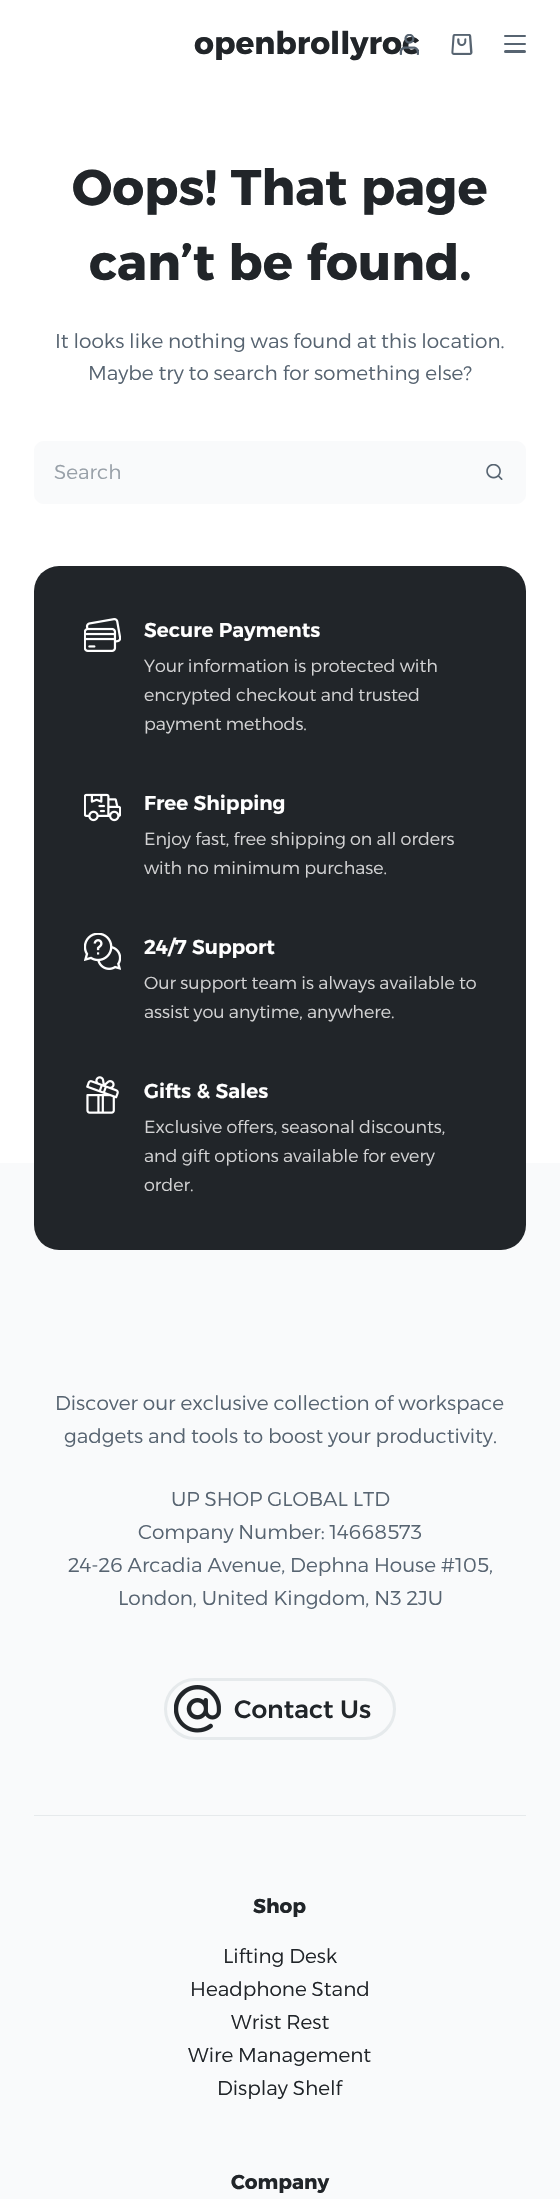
static SkFont makeFont(const char* family, int weight, float size, bool italic = false) {
  SkFontStyle style(weight, SkFontStyle::kNormal_Width,
    italic ? SkFontStyle::kItalic_Slant : SkFontStyle::kUpright_Slant);
  SkFont result(fontMgr->matchFamilyStyle(family, style), size);
  result.setSubpixel(true);
  return result;
}

static void text(SkCanvas* c, const char* s, float x, float y, const SkFont& font, SkColor color) {
  SkPaint ink(SkColor4f::FromColor(color));
  ink.setAntiAlias(true);
  c->drawString(s, x, y, font, ink);
}

static void box(SkCanvas* c, float l, float t, float r, float b, SkColor color) {
  SkPaint ink(SkColor4f::FromColor(color));
  ink.setAntiAlias(true);
  c->drawRect(SkRect::MakeLTRB(l, t, r, b), ink);
}

static void roundBox(SkCanvas* c, float l, float t, float r, float b, float radius, SkColor color) {
  SkPaint ink(SkColor4f::FromColor(color));
  ink.setAntiAlias(true);
  c->drawRoundRect(SkRect::MakeLTRB(l, t, r, b), radius, radius, ink);
}

static void picture(SkCanvas* c, const char* path, float l, float t, float r, float b) {
  auto image = SkImages::DeferredFromEncodedData(SkData::MakeFromFileName(path));
  c->drawImageRect(image, SkRect::MakeLTRB(l, t, r, b), SkSamplingOptions());
}

void draw(SkCanvas* c) {
  SkPaint paint;
  paint.setAntiAlias(true);
  c->clear(0xffffffff);
  SkFont face1 = makeFont("Alexandria", 700, 31.25f);
  text(c, "openbrollyroc", 194, 54, face1, 0xff212529);
  picture(c, "img_01.png", 399, 34, 419, 55);
  picture(c, "img_02.png", 451, 34, 473, 55);
  roundBox(c, 504, 35, 526, 37, 1, 0xff576471);
  roundBox(c, 504, 43, 526, 45, 1, 0xff576471);
  roundBox(c, 504, 50, 526, 53, 1.5f, 0xff576471);
  SkFont face2 = makeFont("Alexandria", 700, 50);
  text(c, "Oops! That page", 72, 205, face2, 0xff212529);
  text(c, "can’t be found.", 89, 280, face2, 0xff212529);
  SkFont face3 = makeFont("Alexandria", 300, 20);
  text(c, "It looks like nothing was found at this location.", 55, 348, face3, 0xff576471);
  text(c, "Maybe try to search for something else?", 88, 380, face3, 0xff576471);
  paint.setColor(0xfff9fafb);
  c->drawPath(SkPathBuilder().moveTo(44, 441).lineTo(464, 441).lineTo(464, 504).lineTo(44, 504).cubicTo(38.5f, 504, 34, 499.5f, 34, 494).lineTo(34, 451).cubicTo(34, 445.5f, 38.5f, 441, 44, 441).close().detach(), paint);
  text(c, "Search", 54, 479, face3, 0xff98a0a8);
  c->drawPath(SkPathBuilder().moveTo(464, 441).lineTo(516, 441).cubicTo(521.5f, 441, 526, 445.5f, 526, 451).lineTo(526, 494).cubicTo(526, 499.5f, 521.5f, 504, 516, 504).lineTo(464, 504).close().detach(), paint);
  picture(c, "img_03.png", 486, 464, 503, 480);
  paint.setStyle(SkPaint::kStroke_Style);
  paint.setStrokeWidth(1.9f);
  paint.setStrokeCap(SkPaint::kRound_Cap);
  c->drawPath(SkPathBuilder().moveTo(498, 481.5f).cubicTo(493.5f, 483, 488, 480.5f, 486, 475.5f).detach(), paint);
  box(c, 0, 1163, 560, 2199, 0xfff9fafb);
  roundBox(c, 34, 566, 526, 1250, 25, 0xff212529);
  picture(c, "img_04.png", 84, 618, 121, 652);
  SkFont face4 = makeFont("Alexandria", 600, 20);
  text(c, "Secure Payments", 144, 637, face4, 0xffffffff);
  SkFont face5 = makeFont("Alexandria", 300, 17.5f);
  text(c, "Your information is protected with", 144, 672, face5, 0xffd3d3d4);
  text(c, "encrypted checkout and trusted", 144, 701, face5, 0xffd3d3d4);
  text(c, "payment methods.", 144, 730, face5, 0xffd3d3d4);
  picture(c, "img_05.png", 84, 793, 121, 822);
  text(c, "Free Shipping", 144, 810, face4, 0xffffffff);
  text(c, "Enjoy fast, free shipping on all orders", 144, 845, face5, 0xffd3d3d4);
  text(c, "with no minimum purchase.", 144, 874, face5, 0xffd3d3d4);
  picture(c, "img_06.png", 84, 933, 121, 970);
  text(c, "24/7 Support", 144, 954, face4, 0xffffffff);
  text(c, "Our support team is always available to", 144, 989, face5, 0xffd3d3d4);
  text(c, "assist you anytime, anywhere.", 144, 1018, face5, 0xffd3d3d4);
  picture(c, "img_07.png", 86, 1076, 119, 1114);
  text(c, "Gifts & Sales", 144, 1098, face4, 0xffffffff);
  text(c, "Exclusive offers, seasonal discounts,", 144, 1133, face5, 0xffd3d3d4);
  text(c, "and gift options available for every", 144, 1162, face5, 0xffd3d3d4);
  text(c, "order.", 144, 1191, face5, 0xffd3d3d4);
  box(c, 34, 1815, 526, 1816, 0xffe6eaec);
  text(c, "Discover our exclusive collection of workspace", 55, 1410, face3, 0xff576471);
  text(c, "gadgets and tools to boost your productivity.", 64, 1443, face3, 0xff576471);
  text(c, "UP SHOP GLOBAL LTD", 171, 1506, face3, 0xff576471);
  text(c, "Company Number: 14668573", 138, 1539, face3, 0xff576471);
  text(c, "24-26 Arcadia Avenue, Dephna House #105,", 68, 1572, face3, 0xff576471);
  text(c, "London, United Kingdom, N3 2JU", 118, 1605, face3, 0xff576471);
  paint.setStrokeWidth(3);
  paint.setStrokeCap(SkPaint::kButt_Cap);
  paint.setColor(0xffe6eaec);
  c->drawRoundRect(SkRect::MakeLTRB(165.5f, 1679.5f, 394.5f, 1738.5f), 29.5f, 29.5f, paint);
  picture(c, "img_08.png", 174, 1685, 221, 1733);
  SkFont face6 = makeFont("Alexandria", 500, 25);
  text(c, "Contact Us", 234, 1718, face6, 0xff212529);
  SkFont face7 = makeFont("Alexandria", 700, 20);
  text(c, "Shop", 253, 1913, face7, 0xff212529);
  text(c, "Lifting Desk", 223, 1963, face3, 0xff212529);
  text(c, "Headphone Stand", 190, 1996, face3, 0xff212529);
  text(c, "Wrist Rest", 231, 2029, face3, 0xff212529);
  text(c, "Wire Management", 188, 2062, face3, 0xff212529);
  text(c, "Display Shelf", 217, 2095, face3, 0xff212529);
  text(c, "Company", 231, 2189, face7, 0xff212529);
}
